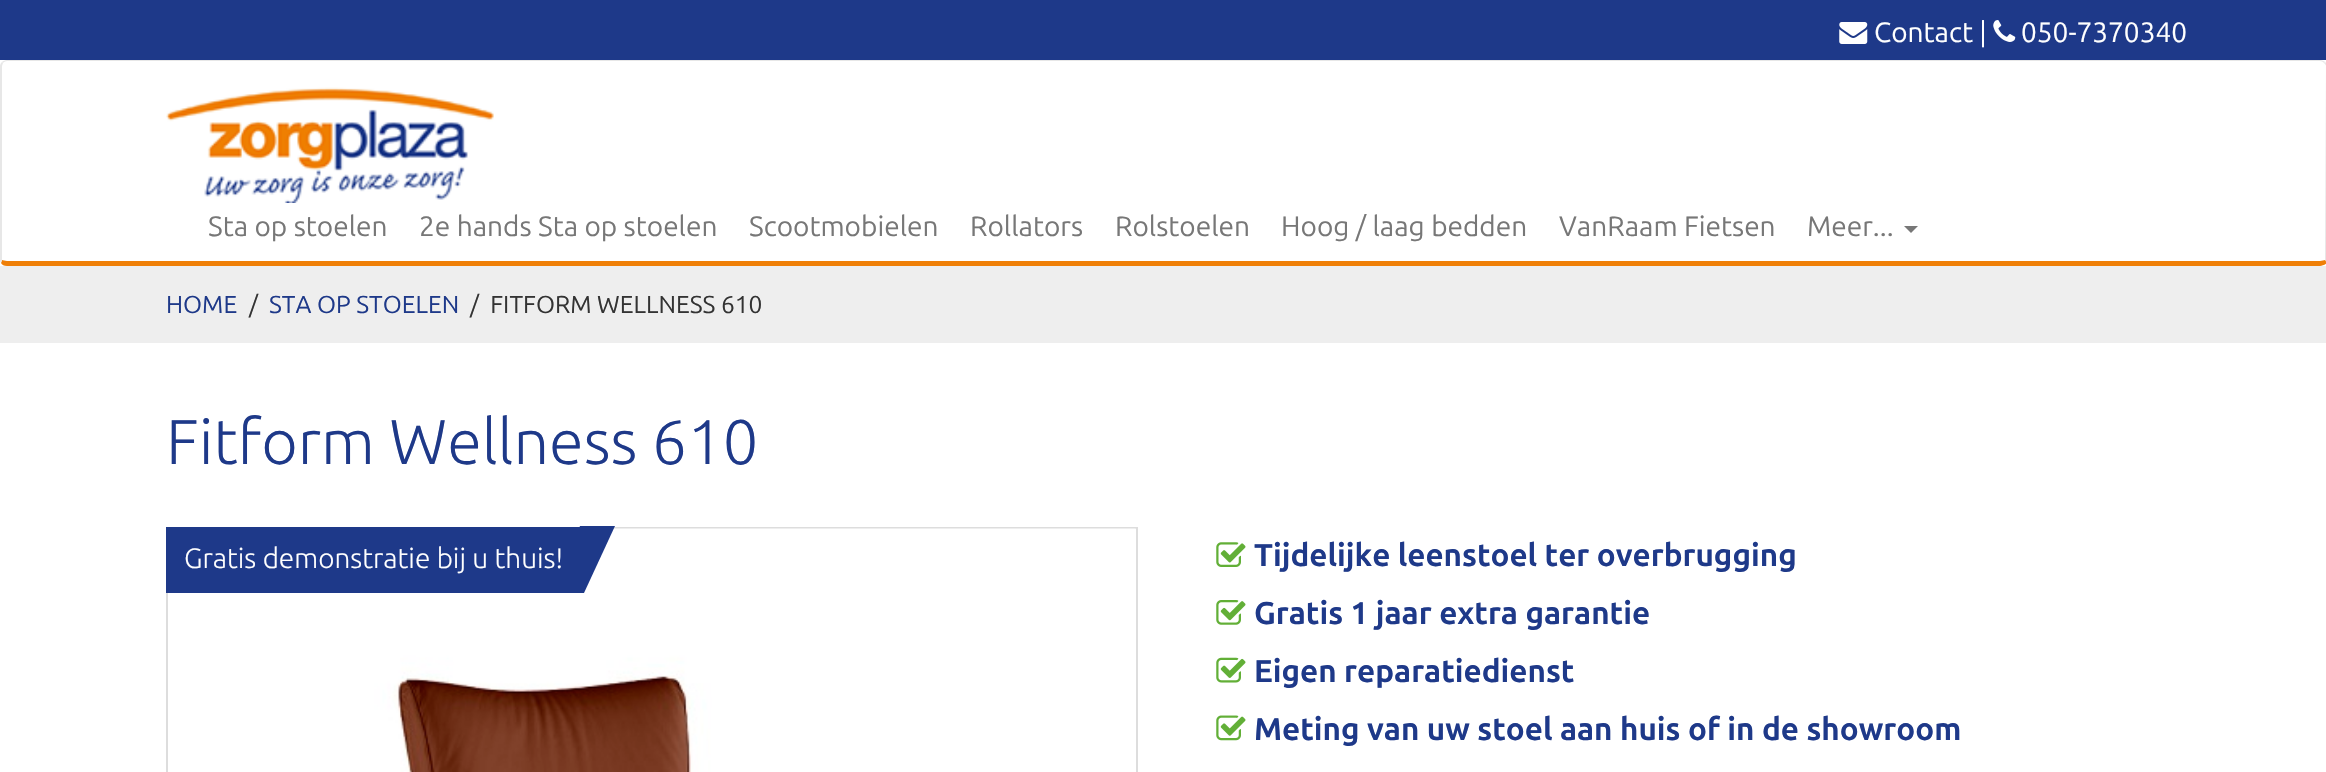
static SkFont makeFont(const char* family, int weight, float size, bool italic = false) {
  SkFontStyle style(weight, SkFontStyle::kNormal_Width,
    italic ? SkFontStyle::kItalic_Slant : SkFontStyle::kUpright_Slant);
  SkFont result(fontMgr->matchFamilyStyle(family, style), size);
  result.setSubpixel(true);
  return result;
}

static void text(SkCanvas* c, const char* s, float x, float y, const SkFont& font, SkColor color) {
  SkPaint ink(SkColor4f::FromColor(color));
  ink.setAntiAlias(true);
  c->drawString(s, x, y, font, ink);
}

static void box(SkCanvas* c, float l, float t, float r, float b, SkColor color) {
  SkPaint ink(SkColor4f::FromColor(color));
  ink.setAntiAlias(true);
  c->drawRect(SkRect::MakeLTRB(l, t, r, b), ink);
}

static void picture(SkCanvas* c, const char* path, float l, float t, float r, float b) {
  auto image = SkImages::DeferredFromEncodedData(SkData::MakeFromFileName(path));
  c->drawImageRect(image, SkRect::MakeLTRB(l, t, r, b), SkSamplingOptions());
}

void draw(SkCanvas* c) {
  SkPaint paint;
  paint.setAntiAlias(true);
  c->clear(0xffffffff);
  box(c, 0, 0, 2326, 60, 0xff1e3989);
  picture(c, "img_01.png", 1839, 22, 1868, 44);
  SkFont face1 = makeFont("Ubuntu", 400, 28);
  text(c, "Contact |", 1874, 42, face1, 0xffffffff);
  picture(c, "img_02.png", 1993, 20, 2016, 42);
  text(c, "050-7370340", 2021, 42, face1, 0xffffffff);
  paint.setColor(0xffe7e7e7);
  c->drawPath(SkPathBuilder().moveTo(7, 60).cubicTo(5, 60, 3, 61, 2, 62).lineTo(3, 63).cubicTo(4, 62, 5, 61, 7, 61).lineTo(2320, 61).cubicTo(2322, 61, 2323, 62, 2324, 63).lineTo(2325, 62).cubicTo(2324, 61, 2322, 60, 2320, 60).close().detach(), paint);
  c->drawPath(SkPathBuilder().moveTo(2325, 62).cubicTo(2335, 69, 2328, 85, 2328, 97).lineTo(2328, 261).lineTo(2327, 263).lineTo(2325, 260).lineTo(2326, 66).cubicTo(2326, 65, 2325, 64, 2324, 63).close().detach(), paint);
  paint.setColor(0xffef7f07);
  c->drawPath(SkPathBuilder().moveTo(7, 266).lineTo(2320, 266).cubicTo(2322, 266, 2325, 265, 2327, 263).lineTo(2325, 260).cubicTo(2324, 260, 2322, 261, 2320, 261).lineTo(7, 261).cubicTo(5, 261, 3, 260, 2, 260).lineTo(1, 263).cubicTo(2, 265, 4, 266, 7, 266).close().detach(), paint);
  paint.setColor(0xffe7e7e7);
  c->drawPath(SkPathBuilder().moveTo(0, 66).lineTo(0, 259).cubicTo(0, 260, 0, 262, 1, 263).lineTo(2, 260).lineTo(2, 66).lineTo(3, 63).lineTo(2, 62).cubicTo(1, 63, 0, 64, 0, 66).close().detach(), paint);
  picture(c, "img_03.png", 166, 87, 494, 203);
  text(c, "Sta op stoelen", 208, 236, face1, 0xff777777);
  text(c, "2e hands Sta op stoelen", 419, 236, face1, 0xff777777);
  text(c, "Scootmobielen", 749, 236, face1, 0xff777777);
  text(c, "Rollators", 970, 236, face1, 0xff777777);
  text(c, "Rolstoelen", 1115, 236, face1, 0xff777777);
  text(c, "Hoog / laag bedden", 1281, 236, face1, 0xff777777);
  text(c, "VanRaam Fietsen", 1559, 236, face1, 0xff777777);
  text(c, "Meer...", 1807, 236, face1, 0xff777777);
  paint.setColor(0xff777777);
  c->drawPath(SkPathBuilder().moveTo(1904, 226).lineTo(1918, 226).lineTo(1911, 233).close().detach(), paint);
  box(c, 0, 266, 2326, 343, 0xffeeeeee);
  SkFont face2 = makeFont("Ubuntu", 400, 24.5f);
  text(c, "HOME", 166, 313, face2, 0xff1e3989);
  text(c, "/", 249, 313, face2, 0xff333333);
  text(c, "STA OP STOELEN", 269, 313, face2, 0xff1e3989);
  text(c, "/  FITFORM WELLNESS 610", 470, 313, face2, 0xff333333);
  SkFont face3 = makeFont("Ubuntu", 300, 63);
  text(c, "Fitform Wellness 610", 166, 464, face3, 0xff1e3989);
  paint.setStyle(SkPaint::kStroke_Style);
  paint.setStrokeWidth(2);
  paint.setColor(0xffdddddd);
  c->drawRect(SkRect::MakeLTRB(167, 528, 1137, 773), paint);
  picture(c, "img_04.png", 168, 528, 1136, 772);
  box(c, 166, 527, 580, 593, 0xff1e3989);
  SkFont face4 = makeFont("Ubuntu", 300, 28);
  text(c, "Gratis demonstratie bij u thuis!", 184, 568, face4, 0xffffffff);
  paint.setStyle(SkPaint::kFill_Style);
  paint.setColor(0xff1e3989);
  c->drawPath(SkPathBuilder().moveTo(580, 526).lineTo(615, 526).lineTo(584, 593).lineTo(549, 593).close().detach(), paint);
  picture(c, "img_05.png", 1216, 542, 1246, 567);
  SkFont face5 = makeFont("Ubuntu", 700, 31.5f);
  text(c, "Tijdelijke leenstoel ter overbrugging", 1254, 566, face5, 0xff1e3989);
  picture(c, "img_06.png", 1216, 600, 1246, 625);
  text(c, "Gratis 1 jaar extra garantie", 1254, 624, face5, 0xff1e3989);
  picture(c, "img_07.png", 1216, 657, 1246, 683);
  text(c, "Eigen reparatiedienst", 1254, 682, face5, 0xff1e3989);
  picture(c, "img_08.png", 1216, 715, 1246, 741);
  text(c, "Meting van uw stoel aan huis of in de showroom", 1254, 740, face5, 0xff1e3989);
}
